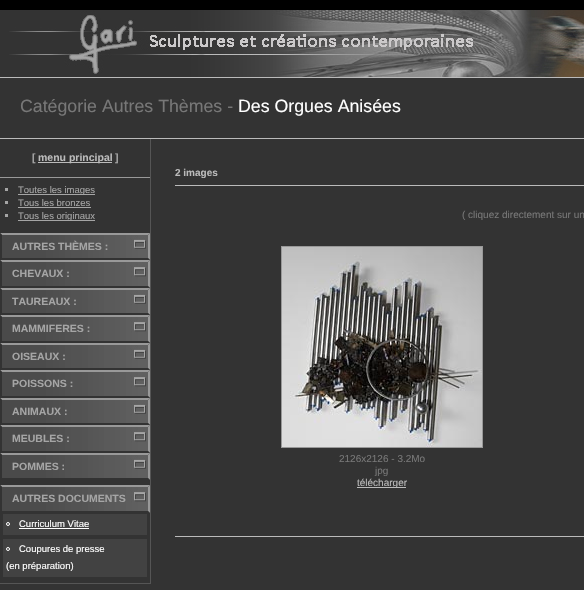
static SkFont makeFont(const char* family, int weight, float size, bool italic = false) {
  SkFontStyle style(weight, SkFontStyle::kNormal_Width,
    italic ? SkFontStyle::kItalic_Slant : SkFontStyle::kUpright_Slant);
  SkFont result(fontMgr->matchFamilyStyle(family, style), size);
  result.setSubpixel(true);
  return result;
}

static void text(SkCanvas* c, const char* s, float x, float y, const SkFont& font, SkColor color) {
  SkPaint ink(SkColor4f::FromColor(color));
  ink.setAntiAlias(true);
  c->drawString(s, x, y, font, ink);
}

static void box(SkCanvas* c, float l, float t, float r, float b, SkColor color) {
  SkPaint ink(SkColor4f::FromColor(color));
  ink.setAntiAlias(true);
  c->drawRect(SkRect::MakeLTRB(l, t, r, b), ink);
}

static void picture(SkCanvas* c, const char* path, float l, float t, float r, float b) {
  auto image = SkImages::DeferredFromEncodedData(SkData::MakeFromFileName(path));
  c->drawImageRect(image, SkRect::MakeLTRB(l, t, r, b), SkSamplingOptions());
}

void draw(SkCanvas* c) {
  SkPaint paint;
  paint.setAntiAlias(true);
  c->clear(0xff000000);
  box(c, 0, 10, 584, 590, 0xff333333);
  box(c, 0, 77, 584, 78, 0xffbbbbbb);
  picture(c, "img_01.png", 9, 10, 584, 77);
  box(c, 0, 138, 584, 139, 0xffbbbbbb);
  SkFont face1 = makeFont("Liberation Sans", 400, 17.75f);
  text(c, "Catégorie Autres Thèmes -", 20, 112, face1, 0xff777777);
  text(c, "Des Orgues Anisées", 238, 112, face1, 0xffffffff);
  box(c, 150, 139, 151, 584, 0xff555555);
  box(c, 0, 583, 151, 584, 0xff555555);
  box(c, 0, 177, 150, 178, 0xff999999);
  SkFont face2 = makeFont("Liberation Sans", 700, 10.5f);
  text(c, "[", 32, 161, face2, 0xffa5a5a5);
  box(c, 38, 162, 112, 163, 0xffbbbbbb);
  text(c, "menu principal", 38, 161, face2, 0xffbbbbbb);
  text(c, "]", 115, 161, face2, 0xffa5a5a5);
  box(c, 5, 188, 8, 191, 0xffa5a5a5);
  box(c, 18, 194, 95, 195, 0xffa5a5a5);
  SkFont face3 = makeFont("Liberation Sans", 400, 9.5f);
  text(c, "Toutes les images", 18, 193, face3, 0xffa5a5a5);
  box(c, 5, 201, 8, 204, 0xffa5a5a5);
  text(c, "Tous les bronzes", 18, 206, face3, 0xffa5a5a5);
  box(c, 18, 207, 91, 208, 0xffa5a5a5);
  box(c, 5, 214, 8, 217, 0xffa5a5a5);
  box(c, 18, 220, 95, 221, 0xffa5a5a5);
  text(c, "Tous les originaux", 18, 219, face3, 0xffa5a5a5);
  picture(c, "img_02.png", 2, 235, 150, 260);
  paint.setColor(0xff999999);
  c->drawPath(SkPathBuilder().moveTo(0, 233).lineTo(150, 233).lineTo(148, 235).lineTo(2, 235).close().detach(), paint);
  c->drawPath(SkPathBuilder().moveTo(150, 233).lineTo(150, 260).lineTo(148, 258).lineTo(148, 235).close().detach(), paint);
  paint.setColor(0xff333333);
  c->drawPath(SkPathBuilder().moveTo(150, 260).lineTo(0, 260).lineTo(2, 258).lineTo(148, 258).close().detach(), paint);
  c->drawPath(SkPathBuilder().moveTo(0, 260).lineTo(0, 233).lineTo(2, 235).lineTo(2, 258).close().detach(), paint);
  text(c, "AUTRES THÈMES :", 12, 250, face2, 0xffa5a5a5);
  picture(c, "img_03.png", 2, 262, 150, 288);
  paint.setColor(0xff999999);
  c->drawPath(SkPathBuilder().moveTo(0, 260).lineTo(150, 260).lineTo(148, 262).lineTo(2, 262).close().detach(), paint);
  c->drawPath(SkPathBuilder().moveTo(150, 260).lineTo(150, 288).lineTo(148, 286).lineTo(148, 262).close().detach(), paint);
  paint.setColor(0xff333333);
  c->drawPath(SkPathBuilder().moveTo(150, 288).lineTo(0, 288).lineTo(2, 286).lineTo(148, 286).close().detach(), paint);
  c->drawPath(SkPathBuilder().moveTo(0, 288).lineTo(0, 260).lineTo(2, 262).lineTo(2, 286).close().detach(), paint);
  text(c, "CHEVAUX :", 12, 277, face2, 0xffa5a5a5);
  picture(c, "img_02.png", 2, 290, 150, 315);
  paint.setColor(0xff999999);
  c->drawPath(SkPathBuilder().moveTo(0, 288).lineTo(150, 288).lineTo(148, 290).lineTo(2, 290).close().detach(), paint);
  c->drawPath(SkPathBuilder().moveTo(150, 288).lineTo(150, 315).lineTo(148, 313).lineTo(148, 290).close().detach(), paint);
  paint.setColor(0xff333333);
  c->drawPath(SkPathBuilder().moveTo(150, 315).lineTo(0, 315).lineTo(2, 313).lineTo(148, 313).close().detach(), paint);
  c->drawPath(SkPathBuilder().moveTo(0, 315).lineTo(0, 288).lineTo(2, 290).lineTo(2, 313).close().detach(), paint);
  text(c, "TAUREAUX :", 12, 305, face2, 0xffa5a5a5);
  picture(c, "img_03.png", 2, 317, 150, 343);
  paint.setColor(0xff999999);
  c->drawPath(SkPathBuilder().moveTo(0, 315).lineTo(150, 315).lineTo(148, 317).lineTo(2, 317).close().detach(), paint);
  c->drawPath(SkPathBuilder().moveTo(150, 315).lineTo(150, 343).lineTo(148, 341).lineTo(148, 317).close().detach(), paint);
  paint.setColor(0xff333333);
  c->drawPath(SkPathBuilder().moveTo(150, 343).lineTo(0, 343).lineTo(2, 341).lineTo(148, 341).close().detach(), paint);
  c->drawPath(SkPathBuilder().moveTo(0, 343).lineTo(0, 315).lineTo(2, 317).lineTo(2, 341).close().detach(), paint);
  text(c, "MAMMIFERES :", 12, 332, face2, 0xffa5a5a5);
  picture(c, "img_02.png", 2, 345, 150, 370);
  paint.setColor(0xff999999);
  c->drawPath(SkPathBuilder().moveTo(0, 343).lineTo(150, 343).lineTo(148, 345).lineTo(2, 345).close().detach(), paint);
  c->drawPath(SkPathBuilder().moveTo(150, 343).lineTo(150, 370).lineTo(148, 368).lineTo(148, 345).close().detach(), paint);
  paint.setColor(0xff333333);
  c->drawPath(SkPathBuilder().moveTo(150, 370).lineTo(0, 370).lineTo(2, 368).lineTo(148, 368).close().detach(), paint);
  c->drawPath(SkPathBuilder().moveTo(0, 370).lineTo(0, 343).lineTo(2, 345).lineTo(2, 368).close().detach(), paint);
  text(c, "OISEAUX :", 12, 360, face2, 0xffa5a5a5);
  picture(c, "img_03.png", 2, 372, 150, 398);
  paint.setColor(0xff999999);
  c->drawPath(SkPathBuilder().moveTo(0, 370).lineTo(150, 370).lineTo(148, 372).lineTo(2, 372).close().detach(), paint);
  c->drawPath(SkPathBuilder().moveTo(150, 370).lineTo(150, 398).lineTo(148, 396).lineTo(148, 372).close().detach(), paint);
  paint.setColor(0xff333333);
  c->drawPath(SkPathBuilder().moveTo(150, 398).lineTo(0, 398).lineTo(2, 396).lineTo(148, 396).close().detach(), paint);
  c->drawPath(SkPathBuilder().moveTo(0, 398).lineTo(0, 370).lineTo(2, 372).lineTo(2, 396).close().detach(), paint);
  text(c, "POISSONS :", 12, 387, face2, 0xffa5a5a5);
  picture(c, "img_02.png", 2, 400, 150, 425);
  paint.setColor(0xff999999);
  c->drawPath(SkPathBuilder().moveTo(0, 398).lineTo(150, 398).lineTo(148, 400).lineTo(2, 400).close().detach(), paint);
  c->drawPath(SkPathBuilder().moveTo(150, 398).lineTo(150, 425).lineTo(148, 423).lineTo(148, 400).close().detach(), paint);
  paint.setColor(0xff333333);
  c->drawPath(SkPathBuilder().moveTo(150, 425).lineTo(0, 425).lineTo(2, 423).lineTo(148, 423).close().detach(), paint);
  c->drawPath(SkPathBuilder().moveTo(0, 425).lineTo(0, 398).lineTo(2, 400).lineTo(2, 423).close().detach(), paint);
  text(c, "ANIMAUX :", 12, 415, face2, 0xffa5a5a5);
  picture(c, "img_03.png", 2, 427, 150, 453);
  paint.setColor(0xff999999);
  c->drawPath(SkPathBuilder().moveTo(0, 425).lineTo(150, 425).lineTo(148, 427).lineTo(2, 427).close().detach(), paint);
  c->drawPath(SkPathBuilder().moveTo(150, 425).lineTo(150, 453).lineTo(148, 451).lineTo(148, 427).close().detach(), paint);
  paint.setColor(0xff333333);
  c->drawPath(SkPathBuilder().moveTo(150, 453).lineTo(0, 453).lineTo(2, 451).lineTo(148, 451).close().detach(), paint);
  c->drawPath(SkPathBuilder().moveTo(0, 453).lineTo(0, 425).lineTo(2, 427).lineTo(2, 451).close().detach(), paint);
  text(c, "MEUBLES :", 12, 442, face2, 0xffa5a5a5);
  picture(c, "img_02.png", 2, 455, 150, 480);
  paint.setColor(0xff999999);
  c->drawPath(SkPathBuilder().moveTo(0, 453).lineTo(150, 453).lineTo(148, 455).lineTo(2, 455).close().detach(), paint);
  c->drawPath(SkPathBuilder().moveTo(150, 453).lineTo(150, 480).lineTo(148, 478).lineTo(148, 455).close().detach(), paint);
  paint.setColor(0xff333333);
  c->drawPath(SkPathBuilder().moveTo(150, 480).lineTo(0, 480).lineTo(2, 478).lineTo(148, 478).close().detach(), paint);
  c->drawPath(SkPathBuilder().moveTo(0, 480).lineTo(0, 453).lineTo(2, 455).lineTo(2, 478).close().detach(), paint);
  text(c, "POMMES :", 12, 470, face2, 0xffa5a5a5);
  picture(c, "img_03.png", 2, 487, 150, 513);
  paint.setColor(0xff999999);
  c->drawPath(SkPathBuilder().moveTo(0, 485).lineTo(150, 485).lineTo(148, 487).lineTo(2, 487).close().detach(), paint);
  c->drawPath(SkPathBuilder().moveTo(150, 485).lineTo(150, 513).lineTo(148, 511).lineTo(148, 487).close().detach(), paint);
  paint.setColor(0xff333333);
  c->drawPath(SkPathBuilder().moveTo(150, 513).lineTo(0, 513).lineTo(2, 511).lineTo(148, 511).close().detach(), paint);
  c->drawPath(SkPathBuilder().moveTo(0, 513).lineTo(0, 485).lineTo(2, 487).lineTo(2, 511).close().detach(), paint);
  text(c, "AUTRES DOCUMENTS", 12, 502, face2, 0xffa5a5a5);
  box(c, 3, 514, 147, 535, 0xff424242);
  paint.setStyle(SkPaint::kStroke_Style);
  paint.setStrokeWidth(1);
  paint.setColor(0xffffffff);
  c->drawCircle(8, 524, 1.5f, paint);
  text(c, "Curriculum Vitae", 19, 527, face3, 0xffffffff);
  box(c, 19, 528, 89, 529, 0xffffffff);
  box(c, 3, 539, 147, 577, 0xff424242);
  c->drawCircle(8, 549, 1.5f, paint);
  text(c, "Coupures de presse", 19, 552, face3, 0xffffffff);
  text(c, "(en préparation)", 6, 569, face3, 0xffffffff);
  box(c, 175, 185, 584, 186, 0xffbbbbbb);
  SkFont face4 = makeFont("Liberation Sans", 700, 10);
  text(c, "2 images", 175, 176, face4, 0xffbbbbbb);
  SkFont face5 = makeFont("Liberation Sans", 400, 10);
  text(c, "( cliquez directement sur un", 462, 218, face5, 0xff777777);
  paint.setColor(0xff999999);
  c->drawRect(SkRect::MakeLTRB(281.5f, 246.5f, 482.5f, 447.5f), paint);
  picture(c, "img_04.png", 282, 247, 482, 447);
  text(c, "2126x2126 - 3.2Mo", 339, 462, face5, 0xff777777);
  text(c, "jpg", 375, 474, face5, 0xff777777);
  box(c, 357, 487, 406, 488, 0xffbbbbbb);
  text(c, "télécharger", 357, 486, face5, 0xffbbbbbb);
  box(c, 175, 536, 584, 537, 0xffbbbbbb);
}
